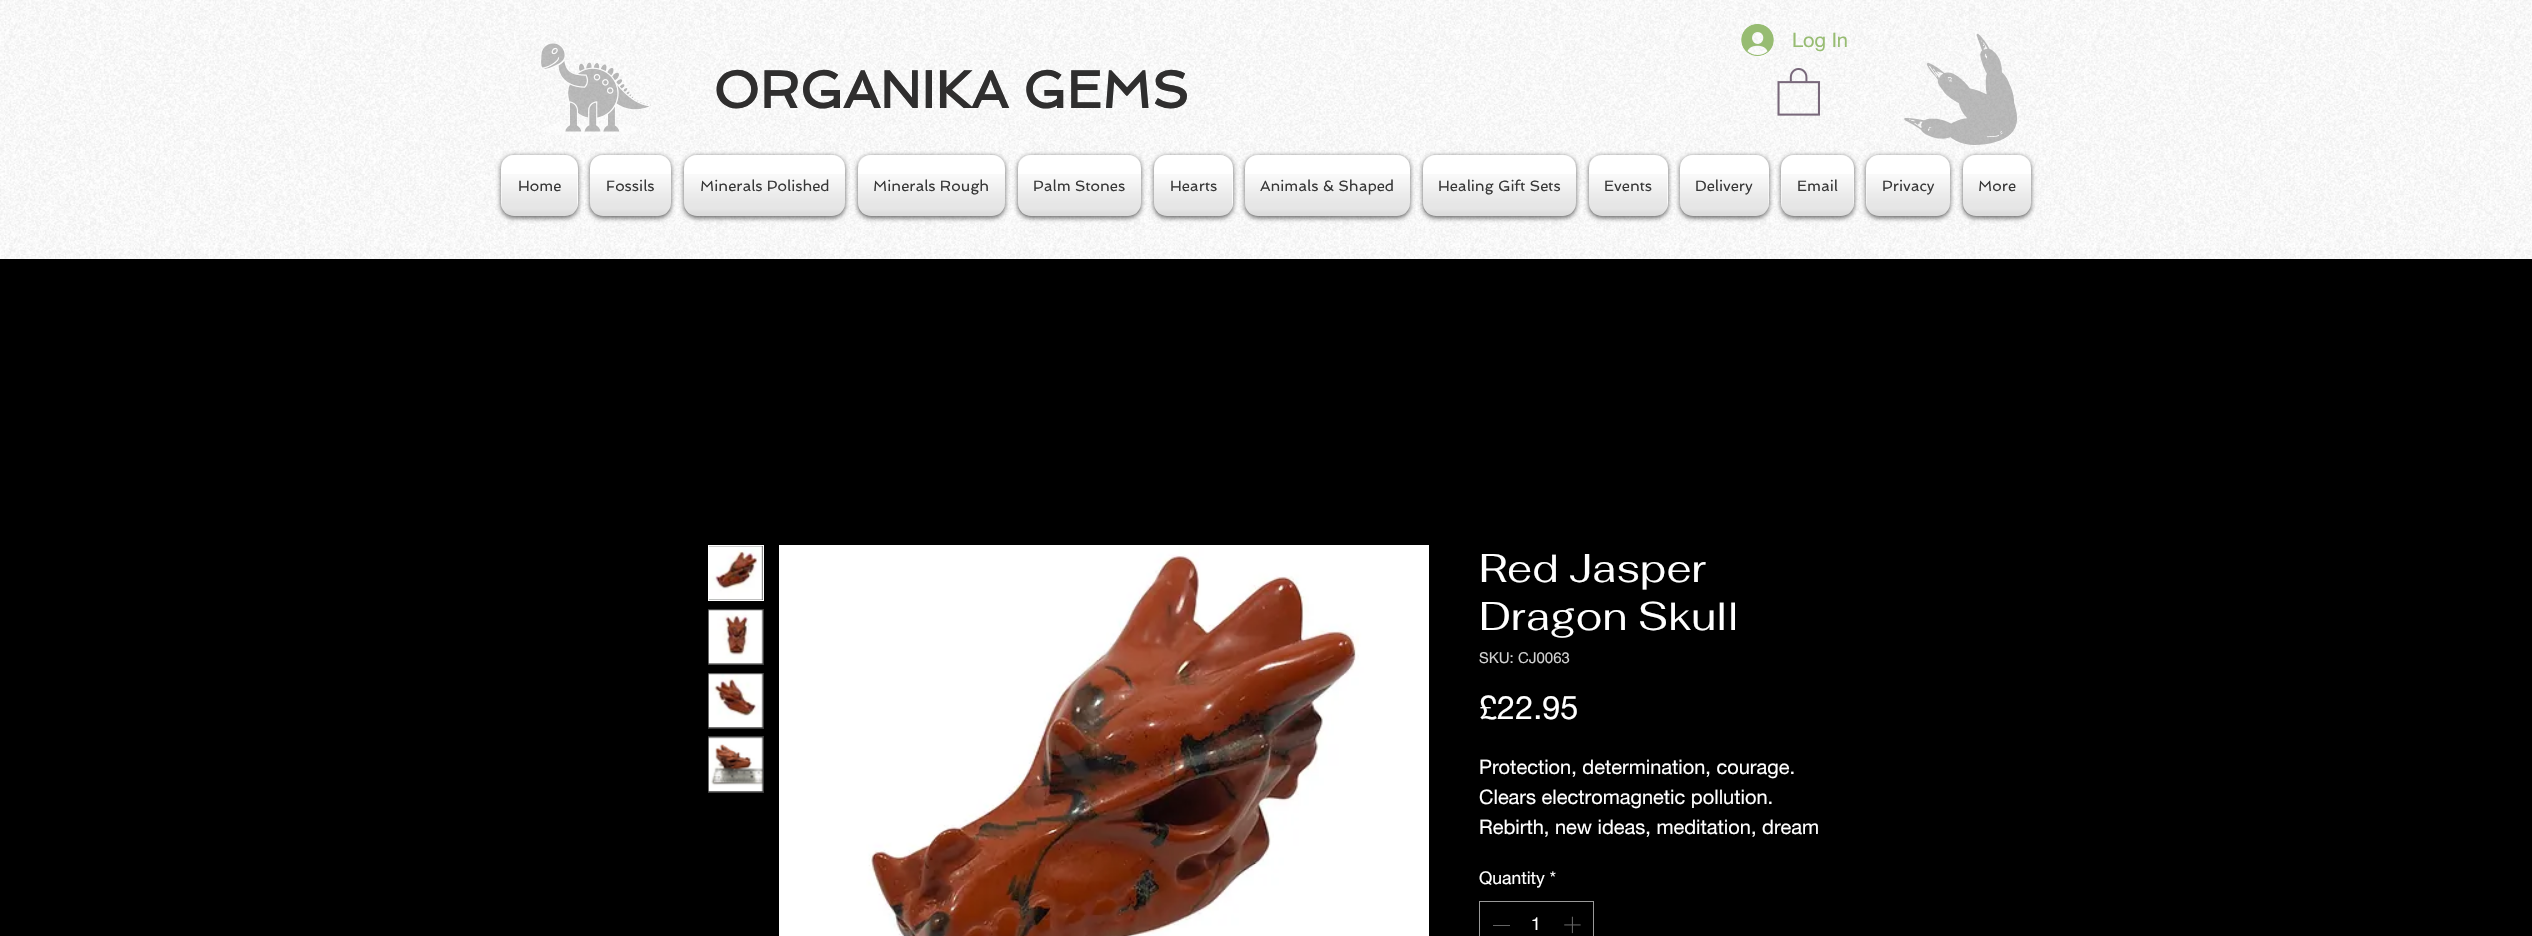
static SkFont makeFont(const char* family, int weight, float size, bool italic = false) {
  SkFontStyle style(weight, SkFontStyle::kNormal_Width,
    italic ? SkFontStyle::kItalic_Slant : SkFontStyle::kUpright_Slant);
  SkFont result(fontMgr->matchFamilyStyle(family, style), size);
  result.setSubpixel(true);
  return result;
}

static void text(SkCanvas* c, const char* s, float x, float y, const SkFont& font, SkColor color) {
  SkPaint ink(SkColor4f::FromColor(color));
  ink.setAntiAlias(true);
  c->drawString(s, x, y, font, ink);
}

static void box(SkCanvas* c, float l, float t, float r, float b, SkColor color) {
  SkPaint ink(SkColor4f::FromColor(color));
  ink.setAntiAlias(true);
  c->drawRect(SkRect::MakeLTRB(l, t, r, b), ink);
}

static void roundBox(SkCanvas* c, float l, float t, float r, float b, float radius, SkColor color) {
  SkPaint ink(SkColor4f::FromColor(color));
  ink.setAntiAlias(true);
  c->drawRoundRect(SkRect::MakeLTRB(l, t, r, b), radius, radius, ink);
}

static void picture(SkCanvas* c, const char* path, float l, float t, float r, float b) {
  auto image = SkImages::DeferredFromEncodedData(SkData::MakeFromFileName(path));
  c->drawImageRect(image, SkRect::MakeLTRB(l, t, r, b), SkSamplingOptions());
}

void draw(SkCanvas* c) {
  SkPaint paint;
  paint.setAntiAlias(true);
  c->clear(0xff000000);
  box(c, 0, 0, 2532, 259, 0xffffffff);
  picture(c, "img_01.png", 0, 0, 2532, 259);
  picture(c, "img_02.png", 541, 43, 651, 136);
  picture(c, "img_03.png", 1741, 24, 1774, 56);
  SkFont face1 = makeFont("helvetica neue", 400, 20);
  text(c, "Log In", 1792, 47, face1, 0xff97bc72);
  picture(c, "img_04.png", 1904, 33, 2017, 145);
  SkFont face2 = makeFont("Spinnaker", 700, 52.5f);
  text(c, "ORGANIKA GEMS", 713, 108, face2, 0xff2f2e2e);
  picture(c, "img_05.png", 1777, 68, 1820, 116);
  paint.setColor(0x99000000);
  paint.setMaskFilter(SkMaskFilter::MakeBlur(kNormal_SkBlurStyle, 2.5f));
  c->drawRoundRect(SkRect::MakeLTRB(501, 156, 578, 218), 13, 13, paint);
  paint.setMaskFilter(nullptr);
  roundBox(c, 501, 155, 578, 216, 13, 0xffffffff);
  picture(c, "img_06.png", 507, 155, 572, 157);
  picture(c, "img_07.png", 501, 174, 578, 216);
  SkFont face3 = makeFont("Spinnaker", 400, 15);
  text(c, "Home", 518, 191, face3, 0xff383838);
  paint.setMaskFilter(SkMaskFilter::MakeBlur(kNormal_SkBlurStyle, 2.5f));
  c->drawRoundRect(SkRect::MakeLTRB(590, 156, 671, 218), 13, 13, paint);
  paint.setMaskFilter(nullptr);
  roundBox(c, 590, 155, 671, 216, 13, 0xffffffff);
  picture(c, "img_08.png", 590, 155, 671, 164);
  picture(c, "img_09.png", 590, 174, 671, 216);
  text(c, "Fossils", 606, 191, face3, 0xff383838);
  paint.setMaskFilter(SkMaskFilter::MakeBlur(kNormal_SkBlurStyle, 2.5f));
  c->drawRoundRect(SkRect::MakeLTRB(684, 156, 845, 218), 13, 13, paint);
  paint.setMaskFilter(nullptr);
  roundBox(c, 684, 155, 845, 216, 13, 0xffffffff);
  picture(c, "img_10.png", 684, 155, 845, 164);
  picture(c, "img_11.png", 684, 174, 845, 216);
  text(c, "Minerals Polished", 700, 191, face3, 0xff383838);
  paint.setMaskFilter(SkMaskFilter::MakeBlur(kNormal_SkBlurStyle, 2.5f));
  c->drawRoundRect(SkRect::MakeLTRB(858, 156, 1005, 218), 13, 13, paint);
  paint.setMaskFilter(nullptr);
  roundBox(c, 858, 155, 1005, 216, 13, 0xffffffff);
  picture(c, "img_12.png", 858, 155, 1005, 165);
  picture(c, "img_13.png", 857, 174, 1005, 216);
  text(c, "Minerals Rough", 873, 191, face3, 0xff383838);
  paint.setMaskFilter(SkMaskFilter::MakeBlur(kNormal_SkBlurStyle, 2.5f));
  c->drawRoundRect(SkRect::MakeLTRB(1018, 156, 1141, 218), 13, 13, paint);
  paint.setMaskFilter(nullptr);
  roundBox(c, 1018, 155, 1141, 216, 13, 0xffffffff);
  picture(c, "img_14.png", 1018, 155, 1141, 164);
  picture(c, "img_15.png", 1017, 174, 1141, 216);
  text(c, "Palm Stones", 1033, 191, face3, 0xff383838);
  paint.setMaskFilter(SkMaskFilter::MakeBlur(kNormal_SkBlurStyle, 2.5f));
  c->drawRoundRect(SkRect::MakeLTRB(1154, 156, 1233, 218), 13, 13, paint);
  paint.setMaskFilter(nullptr);
  roundBox(c, 1154, 155, 1233, 216, 13, 0xffffffff);
  picture(c, "img_16.png", 1154, 155, 1224, 164);
  picture(c, "img_17.png", 1154, 174, 1233, 216);
  text(c, "Hearts", 1170, 191, face3, 0xff383838);
  paint.setMaskFilter(SkMaskFilter::MakeBlur(kNormal_SkBlurStyle, 2.5f));
  c->drawRoundRect(SkRect::MakeLTRB(1245, 156, 1410, 218), 13, 13, paint);
  paint.setMaskFilter(nullptr);
  roundBox(c, 1245, 155, 1410, 216, 13, 0xffffffff);
  picture(c, "img_18.png", 1245, 155, 1410, 164);
  picture(c, "img_19.png", 1245, 174, 1410, 216);
  text(c, "Animals & Shaped", 1260, 191, face3, 0xff383838);
  paint.setMaskFilter(SkMaskFilter::MakeBlur(kNormal_SkBlurStyle, 2.5f));
  c->drawRoundRect(SkRect::MakeLTRB(1423, 156, 1576, 218), 13, 13, paint);
  paint.setMaskFilter(nullptr);
  roundBox(c, 1423, 155, 1576, 216, 13, 0xffffffff);
  picture(c, "img_20.png", 1423, 155, 1576, 164);
  picture(c, "img_21.png", 1422, 174, 1576, 216);
  text(c, "Healing Gift Sets", 1438, 191, face3, 0xff383838);
  paint.setMaskFilter(SkMaskFilter::MakeBlur(kNormal_SkBlurStyle, 2.5f));
  c->drawRoundRect(SkRect::MakeLTRB(1589, 156, 1668, 218), 13, 13, paint);
  paint.setMaskFilter(nullptr);
  roundBox(c, 1589, 155, 1668, 216, 13, 0xffffffff);
  picture(c, "img_22.png", 1589, 155, 1599, 164);
  picture(c, "img_23.png", 1589, 174, 1668, 216);
  text(c, "Events", 1604, 191, face3, 0xff383838);
  paint.setMaskFilter(SkMaskFilter::MakeBlur(kNormal_SkBlurStyle, 2.5f));
  c->drawRoundRect(SkRect::MakeLTRB(1680, 156, 1769, 218), 13, 13, paint);
  paint.setMaskFilter(nullptr);
  roundBox(c, 1680, 155, 1769, 216, 13, 0xffffffff);
  picture(c, "img_24.png", 1680, 155, 1764, 165);
  picture(c, "img_25.png", 1680, 174, 1769, 216);
  text(c, "Delivery", 1695, 191, face3, 0xff383838);
  paint.setMaskFilter(SkMaskFilter::MakeBlur(kNormal_SkBlurStyle, 2.5f));
  c->drawRoundRect(SkRect::MakeLTRB(1781, 156, 1854, 218), 13, 13, paint);
  paint.setMaskFilter(nullptr);
  roundBox(c, 1781, 155, 1854, 216, 13, 0xffffffff);
  picture(c, "img_26.png", 1787, 155, 1849, 158);
  picture(c, "img_27.png", 1781, 174, 1854, 216);
  text(c, "Email", 1797, 191, face3, 0xff383838);
  paint.setMaskFilter(SkMaskFilter::MakeBlur(kNormal_SkBlurStyle, 2.5f));
  c->drawRoundRect(SkRect::MakeLTRB(1866, 156, 1950, 218), 13, 13, paint);
  paint.setMaskFilter(nullptr);
  roundBox(c, 1866, 155, 1950, 216, 13, 0xffffffff);
  picture(c, "img_28.png", 1871, 155, 1950, 164);
  picture(c, "img_29.png", 1866, 174, 1950, 216);
  text(c, "Privacy", 1882, 191, face3, 0xff383838);
  paint.setMaskFilter(SkMaskFilter::MakeBlur(kNormal_SkBlurStyle, 2.5f));
  c->drawRoundRect(SkRect::MakeLTRB(1963, 156, 2031, 218), 13, 13, paint);
  paint.setMaskFilter(nullptr);
  roundBox(c, 1963, 155, 2031, 216, 13, 0xffffffff);
  picture(c, "img_30.png", 1963, 155, 2031, 164);
  picture(c, "img_31.png", 1962, 174, 2031, 216);
  text(c, "More", 1978, 191, face3, 0xff383838);
  paint.setColor(0xff3b3b3b);
  c->drawRect(SkRect::MakeLTRB(708.5f, 545.5f, 763.5f, 600.5f), paint);
  paint.setStyle(SkPaint::kStroke_Style);
  paint.setStrokeWidth(1);
  paint.setColor(0xffffffff);
  c->drawRect(SkRect::MakeLTRB(708.5f, 545.5f, 763.5f, 600.5f), paint);
  picture(c, "img_32.png", 709, 546, 763, 600);
  box(c, 708, 609, 764, 665, 0xff3b3b3b);
  picture(c, "img_33.png", 708, 609, 763, 665);
  box(c, 708, 673, 764, 729, 0xff3b3b3b);
  picture(c, "img_34.png", 708, 673, 763, 728);
  box(c, 708, 736, 764, 793, 0xff3b3b3b);
  picture(c, "img_35.png", 708, 737, 763, 792);
  picture(c, "img_36.png", 779, 545, 1429, 936);
  SkFont face4 = makeFont("Fahkwang", 400, 40);
  text(c, "Red Jasper", 1479, 582, face4, 0xffffffff);
  text(c, "Dragon Skull", 1479, 630, face4, 0xffffffff);
  SkFont face5 = makeFont("helvetica neue", 400, 15);
  text(c, "SKU: CJ0063", 1479, 663, face5, 0xffd1d1d1);
  SkFont face6 = makeFont("helvetica neue", 400, 32.5f);
  text(c, "£22.95", 1479, 719, face6, 0xffffffff);
  text(c, "Protection, determination, courage.", 1479, 774, face1, 0xffffffff);
  text(c, "Clears electromagnetic pollution.", 1479, 804, face1, 0xffffffff);
  text(c, "Rebirth, new ideas, meditation, dream", 1479, 834, face1, 0xffffffff);
  SkFont face7 = makeFont("helvetica neue", 400, 17.5f);
  text(c, "Quantity *", 1479, 884, face7, 0xffffffff);
  paint.setColor(0xff999999);
  c->drawRect(SkRect::MakeLTRB(1479.5f, 901.5f, 1593.5f, 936.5f), paint);
  box(c, 1493, 925, 1510, 926, 0xff646464);
  text(c, "1", 1531, 930, face7, 0xffffffff);
  picture(c, "img_37.png", 1564, 916, 1581, 934);
}
